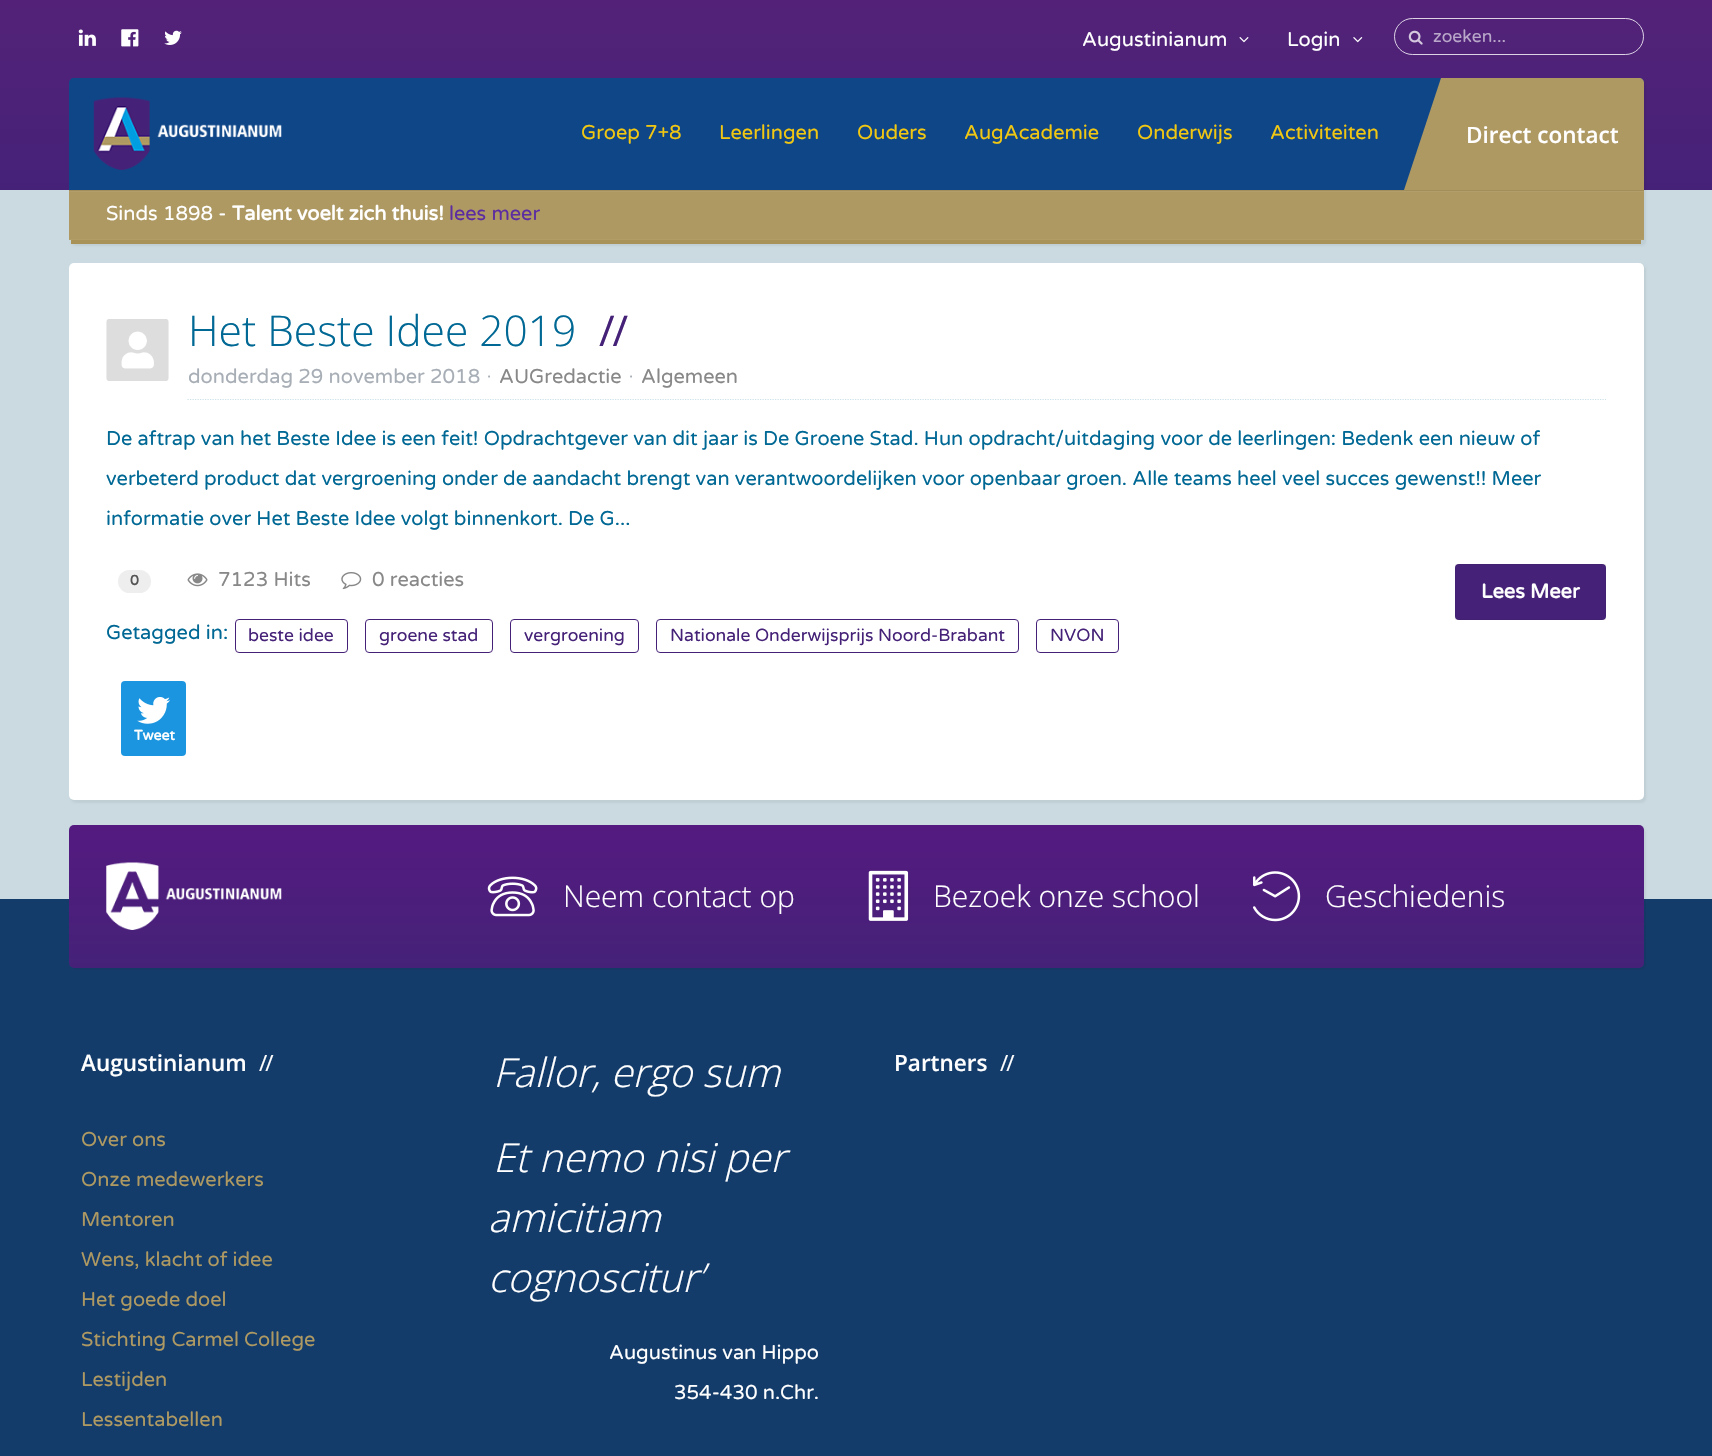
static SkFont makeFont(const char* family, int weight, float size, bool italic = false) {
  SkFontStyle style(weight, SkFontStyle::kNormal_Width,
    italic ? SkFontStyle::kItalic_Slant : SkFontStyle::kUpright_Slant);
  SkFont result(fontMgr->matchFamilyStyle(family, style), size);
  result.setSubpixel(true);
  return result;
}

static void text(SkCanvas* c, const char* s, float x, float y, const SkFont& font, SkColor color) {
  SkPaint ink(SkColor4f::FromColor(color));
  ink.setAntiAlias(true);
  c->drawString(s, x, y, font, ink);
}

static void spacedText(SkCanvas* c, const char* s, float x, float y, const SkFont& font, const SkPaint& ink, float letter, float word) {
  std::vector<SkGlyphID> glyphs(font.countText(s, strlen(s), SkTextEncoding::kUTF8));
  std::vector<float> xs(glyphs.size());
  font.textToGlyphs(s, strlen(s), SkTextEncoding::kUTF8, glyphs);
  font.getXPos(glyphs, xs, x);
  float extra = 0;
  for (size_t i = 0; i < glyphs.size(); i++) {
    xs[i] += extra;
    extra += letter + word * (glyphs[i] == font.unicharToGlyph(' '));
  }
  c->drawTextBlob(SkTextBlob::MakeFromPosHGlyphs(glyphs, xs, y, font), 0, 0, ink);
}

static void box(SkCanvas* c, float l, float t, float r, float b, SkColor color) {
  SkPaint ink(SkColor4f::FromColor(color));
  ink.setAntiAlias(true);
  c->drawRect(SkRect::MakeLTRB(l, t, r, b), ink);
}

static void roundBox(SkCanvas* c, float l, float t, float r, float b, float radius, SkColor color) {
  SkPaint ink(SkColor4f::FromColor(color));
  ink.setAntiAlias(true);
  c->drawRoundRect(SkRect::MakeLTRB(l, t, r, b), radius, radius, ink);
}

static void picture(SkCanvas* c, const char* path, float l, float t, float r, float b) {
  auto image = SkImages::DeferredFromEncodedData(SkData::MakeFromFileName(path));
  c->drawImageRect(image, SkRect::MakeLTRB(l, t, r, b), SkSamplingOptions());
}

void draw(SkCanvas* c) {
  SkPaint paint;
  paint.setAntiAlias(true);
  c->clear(0xffcadae0);
  {
    const SkColor colors[] = {0xff532278, 0xff452278};
    const float stops[] = {0, 1};
    const SkPoint ends[] = {{856, 0}, {856, 190}};
    paint.setShader(SkGradientShader::MakeLinear(ends, colors, stops, 2, SkTileMode::kClamp));
    paint.setAlpha(255);
  }
  c->drawRect(SkRect::MakeLTRB(0, 0, 1712, 190), paint);
  picture(c, "img_01.png", 78, 29, 96, 46);
  picture(c, "img_02.png", 121, 29, 139, 47);
  picture(c, "img_03.png", 164, 30, 182, 45);
  SkFont face1 = makeFont("Varela Round", 400, 20);
  text(c, "Augustinianum", 1082, 46, face1, 0xffffffff);
  picture(c, "img_04.png", 1239, 37, 1249, 43);
  text(c, "Login", 1287, 46, face1, 0xffffffff);
  picture(c, "img_05.png", 1353, 37, 1363, 43);
  paint.setStyle(SkPaint::kStroke_Style);
  paint.setStrokeWidth(1);
  paint.setShader(nullptr);
  paint.setColor(0xccffffff);
  c->drawRoundRect(SkRect::MakeLTRB(1394.5f, 18.5f, 1643.5f, 54.5f), 18, 18, paint);
  picture(c, "img_06.png", 1408, 30, 1423, 45);
  SkFont face2 = makeFont("Varela Round", 400, 17.5f);
  text(c, "zoeken...", 1433, 42, face2, 0xffb9a7c9);
  paint.setStyle(SkPaint::kFill_Style);
  paint.setColor(0x0d000000);
  paint.setMaskFilter(SkMaskFilter::MakeBlur(kNormal_SkBlurStyle, 1));
  c->drawRoundRect(SkRect::MakeLTRB(71, 80, 1646, 246), 5, 5, paint);
  paint.setMaskFilter(nullptr);
  box(c, 71, 240, 1641, 244, 0xffa99258);
  paint.setColor(0xff0f4688);
  c->drawPath(SkPathBuilder().moveTo(74, 78).lineTo(1639, 78).cubicTo(1642, 78, 1644, 80, 1644, 83).lineTo(1644, 190).lineTo(69, 190).lineTo(69, 83).cubicTo(69, 80, 71, 78, 74, 78).close().detach(), paint);
  picture(c, "img_07.png", 93, 97, 282, 170);
  text(c, "Groep 7+8", 581, 139, face1, 0xfff1c712);
  text(c, "Leerlingen", 719, 139, face1, 0xfff1c712);
  text(c, "Ouders", 857, 139, face1, 0xfff1c712);
  text(c, "AugAcademie", 964, 139, face1, 0xfff1c712);
  text(c, "Onderwijs", 1137, 139, face1, 0xfff1c712);
  text(c, "Activiteiten", 1270, 139, face1, 0xfff1c712);
  paint.setColor(0xffae9962);
  c->drawPath(SkPathBuilder().moveTo(1441, 78).lineTo(1639, 78).cubicTo(1642, 78, 1644, 80, 1644, 83).lineTo(1644, 190).lineTo(1441, 190).close().detach(), paint);
  c->drawPath(SkPathBuilder().moveTo(1441, 190).lineTo(1404, 190).lineTo(1441, 78).close().detach(), paint);
  SkFont face3 = makeFont("Open Sans", 600, 22.5f);
  text(c, "Direct contact", 1466, 143, face3, 0xffffffff);
  box(c, 69, 192, 1644, 239, 0xffae9962);
  box(c, 69, 239, 1644, 240, 0xffb19d67);
  box(c, 69, 191, 1644, 192, 0xffb29e6a);
  box(c, 69, 190, 1644, 191, 0xffa18e5b);
  text(c, "Sinds 1898 -", 106, 220, face1, 0xffffffff);
  SkFont face4 = makeFont("Varela Round", 700, 20);
  text(c, "Talent voelt zich thuis!", 232, 220, face4, 0xffffffff);
  text(c, "lees meer", 449, 220, face1, 0xff5c2da0);
  paint.setColor(0x0d000000);
  paint.setMaskFilter(SkMaskFilter::MakeBlur(kNormal_SkBlurStyle, 1));
  c->drawRoundRect(SkRect::MakeLTRB(71, 265, 1646, 803), 5, 5, paint);
  paint.setMaskFilter(nullptr);
  roundBox(c, 69, 263, 1644, 800, 5, 0xffffffff);
  picture(c, "img_08.png", 106, 319, 169, 381);
  SkFont face5 = makeFont("Open Sans", 300, 42.5f);
  text(c, "Het Beste Idee 2019", 188, 346, face5, 0xff006894);
  SkFont face6 = makeFont("Open Sans", 400, 42.5f);
  paint.setColor(0xff452278);
  spacedText(c, "//", 599, 346, face6, paint, -2, 0);
  paint.setStyle(SkPaint::kStroke_Style);
  paint.setStrokeWidth(1.2f);
  paint.setColor(0xffcce1ea);
  paint.setPathEffect(SkDashPathEffect::Make({{1.25f, 1.25f}}, 0));
  c->drawPath(SkPathBuilder().moveTo(187.5f, 399.5f).lineTo(1606, 399.5f).detach(), paint);
  paint.setPathEffect(nullptr);
  text(c, "donderdag 29 november 2018", 188, 383, face1, 0xffa8aeb6);
  SkFont face7 = makeFont("Varela Round", 400, 16);
  text(c, "·", 487, 381, face7, 0xffa8aeb6);
  text(c, "AUGredactie", 499, 383, face1, 0xff888888);
  text(c, "·", 629, 381, face7, 0xffa8aeb6);
  text(c, "Algemeen", 641, 383, face1, 0xff888888);
  text(c, "De aftrap van het Beste Idee is een feit! Opdrachtgever van dit jaar is De Groene Stad. Hun opdracht/uitdaging voor de leerlingen: Bedenk een nieuw of", 106, 445, face1, 0xff006894);
  text(c, "verbeterd product dat vergroening onder de aandacht brengt van verantwoordelijken voor openbaar groen. Alle teams heel veel succes gewenst!! Meer", 106, 485, face1, 0xff006894);
  text(c, "informatie over Het Beste Idee volgt binnenkort. De G...", 106, 525, face1, 0xff006894);
  roundBox(c, 118, 570, 151, 593, 11.5f, 0xffeeeeee);
  SkFont face8 = makeFont("Varela Round", 700, 14);
  text(c, "0", 130, 585, face8, 0xff555555);
  picture(c, "img_09.png", 187, 573, 208, 587);
  text(c, "7123 Hits", 218, 586, face1, 0xff888888);
  picture(c, "img_10.png", 341, 572, 362, 590);
  text(c, "0 reacties", 372, 586, face1, 0xff888888);
  roundBox(c, 1455, 564, 1606, 620, 4, 0xff452278);
  paint.setStrokeWidth(1);
  paint.setColor(0x0d000000);
  c->drawRect(SkRect::MakeLTRB(1455.5f, 564.5f, 1605.5f, 619.5f), paint);
  text(c, "Lees Meer", 1481, 598, face4, 0xffffffff);
  text(c, "Getagged in:", 106, 639, face1, 0xff006894);
  paint.setColor(0xff452278);
  c->drawRoundRect(SkRect::MakeLTRB(235.5f, 619.5f, 347.5f, 652.5f), 3.5f, 3.5f, paint);
  text(c, "beste idee", 248, 641, face2, 0xff452278);
  c->drawRoundRect(SkRect::MakeLTRB(365.5f, 619.5f, 492.5f, 652.5f), 3.5f, 3.5f, paint);
  text(c, "groene stad", 379, 641, face2, 0xff452278);
  c->drawRoundRect(SkRect::MakeLTRB(510.5f, 619.5f, 638.5f, 652.5f), 3.5f, 3.5f, paint);
  text(c, "vergroening", 524, 641, face2, 0xff452278);
  c->drawRoundRect(SkRect::MakeLTRB(656.5f, 619.5f, 1018.5f, 652.5f), 3.5f, 3.5f, paint);
  text(c, "Nationale Onderwijsprijs Noord-Brabant", 670, 641, face2, 0xff452278);
  c->drawRoundRect(SkRect::MakeLTRB(1036.5f, 619.5f, 1118.5f, 652.5f), 3.5f, 3.5f, paint);
  text(c, "NVON", 1050, 641, face2, 0xff452278);
  roundBox(c, 121, 681, 186, 756, 4, 0xff1b95e0);
  picture(c, "img_11.png", 137, 697, 170, 724);
  text(c, "Tweet", 134, 740, face8, 0xffffffff);
  box(c, 0, 899, 1712, 1456, 0xff143c6b);
  paint.setStyle(SkPaint::kFill_Style);
  paint.setColor(0x0d000000);
  paint.setMaskFilter(SkMaskFilter::MakeBlur(kNormal_SkBlurStyle, 1));
  c->drawRoundRect(SkRect::MakeLTRB(71, 828, 1646, 970), 5, 5, paint);
  paint.setMaskFilter(nullptr);
  {
    const SkColor colors[] = {0xff541a80, 0xff452278};
    const float stops[] = {0, 1};
    const SkPoint ends[] = {{856, 825}, {856, 968}};
    paint.setShader(SkGradientShader::MakeLinear(ends, colors, stops, 2, SkTileMode::kClamp));
    paint.setAlpha(255);
  }
  c->drawRoundRect(SkRect::MakeLTRB(69, 825, 1644, 968), 5, 5, paint);
  picture(c, "img_12.png", 106, 862, 282, 930);
  picture(c, "img_13.png", 487, 876, 538, 917);
  SkFont face9 = makeFont("Open Sans", 300, 30);
  text(c, "Neem contact op", 563, 907, face9, 0xffffffff);
  picture(c, "img_14.png", 868, 870, 909, 921);
  text(c, "Bezoek onze school", 933, 907, face9, 0xffffffff);
  picture(c, "img_15.png", 1253, 871, 1301, 922);
  text(c, "Geschiedenis", 1325, 907, face9, 0xffffffff);
  text(c, "Augustinianum", 81, 1071, face3, 0xffffffff);
  SkFont face10 = makeFont("Open Sans", 400, 22.5f);
  paint.setShader(nullptr);
  paint.setColor(0xffffffff);
  spacedText(c, "//", 259, 1071, face10, paint, -2, 0);
  text(c, "Over ons", 81, 1146, face1, 0xffae9962);
  text(c, "Onze medewerkers", 81, 1186, face1, 0xffae9962);
  text(c, "Mentoren", 81, 1226, face1, 0xffae9962);
  text(c, "Wens, klacht of idee", 81, 1266, face1, 0xffae9962);
  text(c, "Het goede doel", 81, 1306, face1, 0xffae9962);
  text(c, "Stichting Carmel College", 81, 1346, face1, 0xffae9962);
  text(c, "Lestijden", 81, 1386, face1, 0xffae9962);
  text(c, "Lessentabellen", 81, 1426, face1, 0xffae9962);
  SkFont face11 = makeFont("Open Sans", 300, 40, true);
  text(c, "Fallor, ergo sum", 493, 1087, face11, 0xffffffff);
  text(c, "Et nemo nisi per", 493, 1172, face11, 0xffffffff);
  text(c, "amicitiam", 488, 1232, face11, 0xffffffff);
  text(c, "cognoscitur’", 488, 1292, face11, 0xffffffff);
  text(c, "Augustinus van Hippo", 609, 1359, face1, 0xffffffff);
  text(c, "354-430 n.Chr.", 674, 1399, face1, 0xffffffff);
  text(c, "Partners", 894, 1071, face3, 0xffffffff);
  spacedText(c, "//", 1000, 1071, face10, paint, -2, 0);
}
